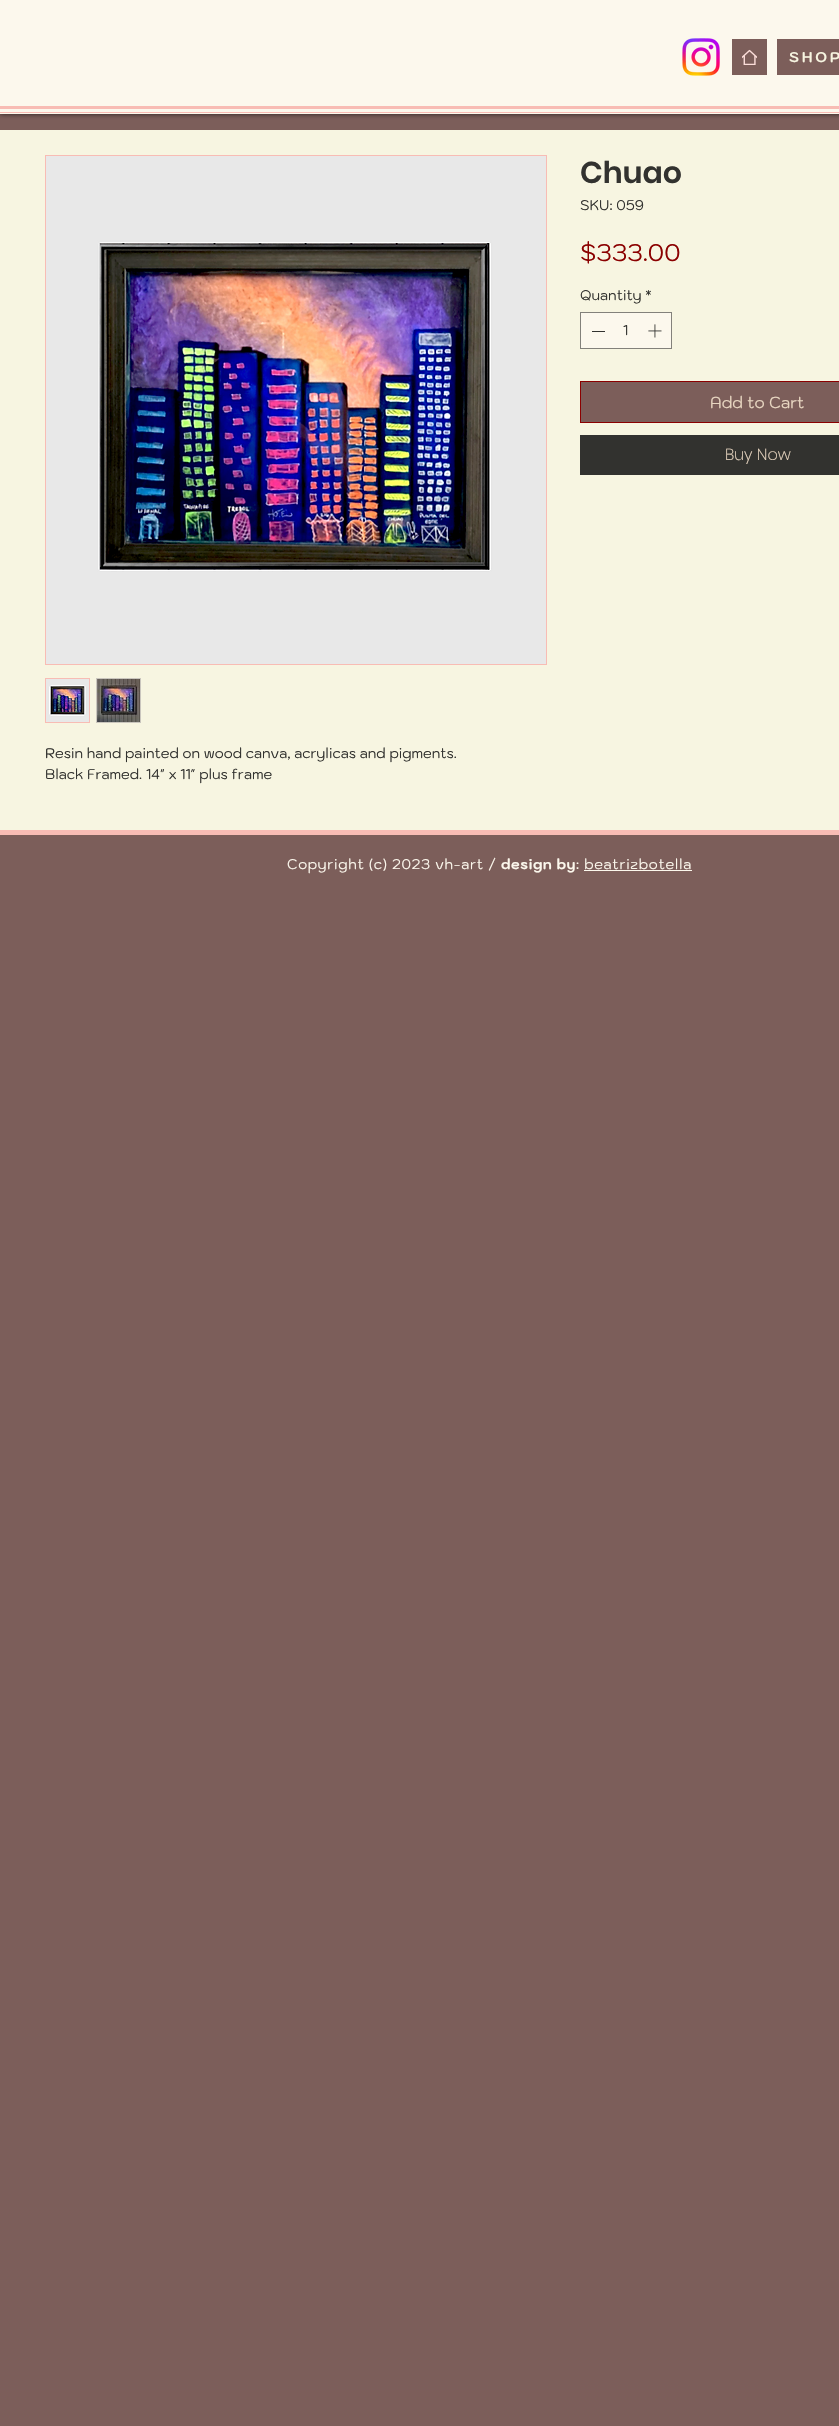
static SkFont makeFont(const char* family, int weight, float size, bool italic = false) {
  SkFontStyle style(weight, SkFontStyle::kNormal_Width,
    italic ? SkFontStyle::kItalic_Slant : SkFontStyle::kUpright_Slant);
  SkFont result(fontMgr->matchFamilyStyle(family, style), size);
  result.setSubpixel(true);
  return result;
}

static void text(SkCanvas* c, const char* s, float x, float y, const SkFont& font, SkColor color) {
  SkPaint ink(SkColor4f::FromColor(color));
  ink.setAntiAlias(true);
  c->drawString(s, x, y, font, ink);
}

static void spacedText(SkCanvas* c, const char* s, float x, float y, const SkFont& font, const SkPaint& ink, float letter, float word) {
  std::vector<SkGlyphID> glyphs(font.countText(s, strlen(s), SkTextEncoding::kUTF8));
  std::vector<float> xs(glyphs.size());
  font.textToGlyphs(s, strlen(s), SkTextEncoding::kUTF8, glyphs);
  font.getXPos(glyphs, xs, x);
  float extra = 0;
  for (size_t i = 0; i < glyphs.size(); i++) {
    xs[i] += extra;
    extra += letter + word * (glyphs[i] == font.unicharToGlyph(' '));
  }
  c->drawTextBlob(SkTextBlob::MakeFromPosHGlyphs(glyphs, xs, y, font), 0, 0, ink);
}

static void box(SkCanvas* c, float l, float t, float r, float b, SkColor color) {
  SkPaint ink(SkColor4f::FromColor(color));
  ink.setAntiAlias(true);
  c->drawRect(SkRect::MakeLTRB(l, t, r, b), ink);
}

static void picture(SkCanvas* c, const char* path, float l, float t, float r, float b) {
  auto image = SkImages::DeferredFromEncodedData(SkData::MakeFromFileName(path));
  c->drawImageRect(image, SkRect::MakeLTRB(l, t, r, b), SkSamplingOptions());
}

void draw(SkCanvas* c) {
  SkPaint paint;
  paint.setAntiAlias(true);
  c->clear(0xff7c5e5a);
  paint.setColor(0xb3000000);
  paint.setMaskFilter(SkMaskFilter::MakeBlur(kNormal_SkBlurStyle, 2.5f));
  c->drawRect(SkRect::MakeLTRB(0, 0, 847, 114), paint);
  paint.setMaskFilter(nullptr);
  box(c, 0, 0, 839, 114, 0xfffcf8ed);
  picture(c, "img_01.png", 682, 38, 720, 76);
  box(c, 732, 39, 767, 75, 0xff7c5e5a);
  picture(c, "img_02.png", 742, 49, 757, 65);
  box(c, 777, 39, 839, 75, 0xff7c5e5a);
  SkFont face1 = makeFont("Kodchasan", 700, 14);
  paint.setColor(0xfff7f5e1);
  spacedText(c, "SHOP", 789, 62, face1, paint, 3, 0);
  box(c, 0, 106, 839, 109, 0xfff8bcb4);
  box(c, 0, 112, 839, 113, 0xfff8bcb4);
  box(c, 0, 130, 839, 830, 0xfff7f5e1);
  SkFont face2 = makeFont("Poppins", 600, 30);
  text(c, "Chuao", 580, 183, face2, 0xff32322f);
  SkFont face3 = makeFont("Kodchasan", 400, 14);
  text(c, "SKU: 059", 580, 210, face3, 0xff32322f);
  SkFont face4 = makeFont("Kodchasan", 400, 24);
  text(c, "$333.00", 580, 261, face4, 0xff8b0000);
  text(c, "Quantity *", 580, 300, face3, 0xff32322f);
  paint.setColor(0xfffcf8ed);
  c->drawRect(SkRect::MakeLTRB(580.5f, 312.5f, 671.5f, 348.5f), paint);
  paint.setStyle(SkPaint::kStroke_Style);
  paint.setStrokeWidth(1);
  paint.setColor(0xff83817b);
  c->drawRect(SkRect::MakeLTRB(580.5f, 312.5f, 671.5f, 348.5f), paint);
  box(c, 592, 331, 605, 332, 0xff32322f);
  text(c, "1", 623, 335, face3, 0xff32322f);
  picture(c, "img_03.png", 648, 324, 662, 338);
  paint.setStyle(SkPaint::kFill_Style);
  paint.setColor(0xff7c5e5a);
  c->drawRect(SkRect::MakeLTRB(580.5f, 381.5f, 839.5f, 422.5f), paint);
  paint.setStyle(SkPaint::kStroke_Style);
  paint.setColor(0xff8b0000);
  c->drawRect(SkRect::MakeLTRB(580.5f, 381.5f, 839.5f, 422.5f), paint);
  SkFont face5 = makeFont("Kodchasan", 400, 16);
  text(c, "Add to Cart", 710, 408, face5, 0xffe8d6c1);
  box(c, 580, 435, 839, 475, 0xff32322f);
  SkFont face6 = makeFont("Poppins", 200, 16);
  text(c, "Buy Now", 725, 460, face6, 0xffe8d6c1);
  paint.setColor(0xfff8bcb4);
  c->drawRect(SkRect::MakeLTRB(45.5f, 155.5f, 546.5f, 664.5f), paint);
  picture(c, "img_04.png", 46, 156, 546, 664);
  c->drawRect(SkRect::MakeLTRB(45.5f, 678.5f, 89.5f, 722.5f), paint);
  picture(c, "img_05.png", 46, 679, 89, 722);
  box(c, 96, 678, 141, 723, 0xffcac6be);
  picture(c, "img_06.png", 97, 679, 140, 722);
  text(c, "Resin hand painted on wood canva, acrylicas and pigments.", 45, 758, face3, 0xff32322f);
  text(c, "Black Framed. 14\" x 11\" plus frame", 45, 779, face3, 0xff32322f);
  box(c, 0, 830, 839, 835, 0xfff8bcb4);
  paint.setStyle(SkPaint::kFill_Style);
  paint.setColor(0xfffcf8ed);
  spacedText(c, "Copyright (c) 2023 vh-art /", 287, 869, face3, paint, 0.7f, 0);
  spacedText(c, "design by", 501, 869, face1, paint, 0.7f, 0);
  spacedText(c, ": beatrizbotella", 576, 869, face3, paint, 0.7f, 0);
  box(c, 584, 870, 692, 871, 0xfffcf8ed);
}
